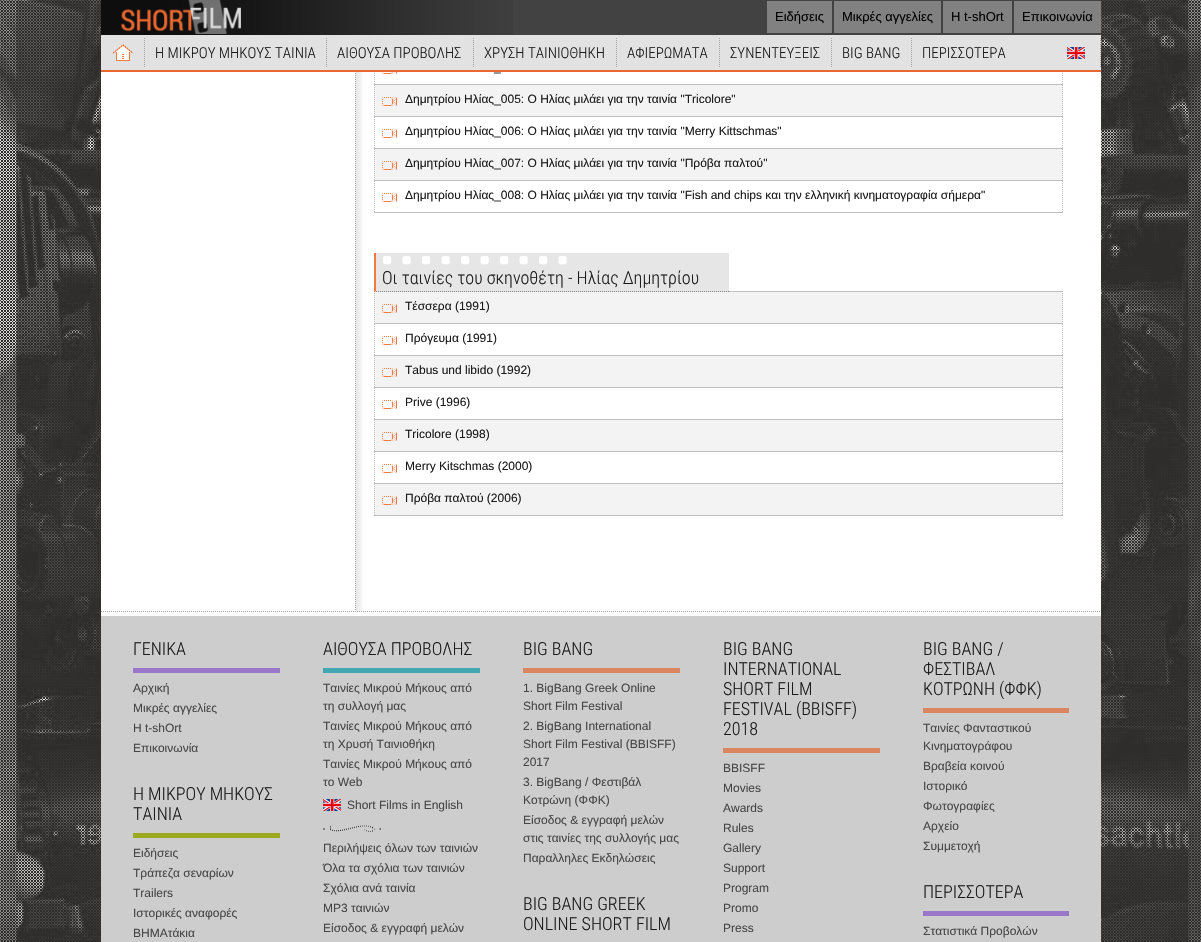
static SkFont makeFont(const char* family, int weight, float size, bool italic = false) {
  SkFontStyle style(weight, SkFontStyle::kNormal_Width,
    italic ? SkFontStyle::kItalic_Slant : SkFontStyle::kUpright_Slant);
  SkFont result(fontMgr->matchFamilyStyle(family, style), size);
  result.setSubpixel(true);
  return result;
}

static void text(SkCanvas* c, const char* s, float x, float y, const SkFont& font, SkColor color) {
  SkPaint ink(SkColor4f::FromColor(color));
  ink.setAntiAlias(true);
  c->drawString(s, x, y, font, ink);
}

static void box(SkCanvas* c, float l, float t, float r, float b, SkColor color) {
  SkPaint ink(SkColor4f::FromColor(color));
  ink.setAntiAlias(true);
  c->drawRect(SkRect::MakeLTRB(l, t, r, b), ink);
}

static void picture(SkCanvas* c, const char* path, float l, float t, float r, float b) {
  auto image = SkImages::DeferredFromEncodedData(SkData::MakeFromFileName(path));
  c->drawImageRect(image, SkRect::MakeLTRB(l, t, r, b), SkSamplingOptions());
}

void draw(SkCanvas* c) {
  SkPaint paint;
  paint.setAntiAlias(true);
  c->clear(0xffffffff);
  picture(c, "img_01.png", 0, 0, 1201, 942);
  picture(c, "img_02.png", 0, 0, 1201, 942);
  box(c, 101, 72, 1101, 616, 0xffffffff);
  paint.setStyle(SkPaint::kStroke_Style);
  paint.setStrokeWidth(1);
  paint.setColor(0xffa2a2a2);
  paint.setPathEffect(SkDashPathEffect::Make({{1, 1}}, 0));
  c->drawPath(SkPathBuilder().moveTo(355.5f, -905).lineTo(355.5f, 611).detach(), paint);
  paint.setPathEffect(nullptr);
  box(c, 101, 0, 1101, 35, 0xff424242);
  picture(c, "img_03.png", 101, 0, 513, 35);
  picture(c, "img_04.png", 120, 0, 241, 34);
  box(c, 767, 1, 832, 33, 0xff818181);
  SkFont face1 = makeFont("Liberation Sans", 400, 13);
  text(c, "Ειδήσεις", 775, 21, face1, 0xff000000);
  box(c, 834, 1, 941, 33, 0xff818181);
  text(c, "Μικρές αγγελίες", 842, 21, face1, 0xff000000);
  box(c, 943, 1, 1012, 33, 0xff818181);
  text(c, "Η t-shOrt", 951, 21, face1, 0xff000000);
  box(c, 1014, 1, 1101, 33, 0xff818181);
  text(c, "Επικοινωνία", 1022, 21, face1, 0xff000000);
  paint.setColor(0xffc0c0c0);
  paint.setPathEffect(SkDashPathEffect::Make({{1, 1}}, 0));
  c->drawPath(SkPathBuilder().moveTo(1062.5f, 53).lineTo(1062.5f, 85).detach(), paint);
  paint.setPathEffect(nullptr);
  paint.setPathEffect(SkDashPathEffect::Make({{1, 1}}, 0));
  c->drawPath(SkPathBuilder().moveTo(374.5f, 53).lineTo(374.5f, 85).detach(), paint);
  paint.setPathEffect(nullptr);
  box(c, 101, 70, 1101, 72, 0xffea682f);
  box(c, 101, 35, 1101, 70, 0xffe2e2e2);
  picture(c, "img_05.png", 112, 44, 134, 61);
  paint.setColor(0xffa2a2a2);
  paint.setPathEffect(SkDashPathEffect::Make({{1, 1}}, 0));
  c->drawPath(SkPathBuilder().moveTo(144.5f, 38).lineTo(144.5f, 67).detach(), paint);
  paint.setPathEffect(nullptr);
  SkFont face2 = makeFont("Roboto Condensed", 300, 15);
  text(c, "Η ΜΙΚΡΟΥ ΜΗΚΟΥΣ ΤΑΙΝΙΑ", 155, 58, face2, 0xff1a1a1a);
  paint.setPathEffect(SkDashPathEffect::Make({{1, 1}}, 0));
  c->drawPath(SkPathBuilder().moveTo(326.5f, 38).lineTo(326.5f, 67).detach(), paint);
  paint.setPathEffect(nullptr);
  text(c, "ΑΙΘΟΥΣΑ ΠΡΟΒΟΛΗΣ", 337, 58, face2, 0xff1a1a1a);
  paint.setPathEffect(SkDashPathEffect::Make({{1, 1}}, 0));
  c->drawPath(SkPathBuilder().moveTo(473.5f, 38).lineTo(473.5f, 67).detach(), paint);
  paint.setPathEffect(nullptr);
  text(c, "ΧΡΥΣΗ ΤΑΙΝΙΟΘΗΚΗ", 484, 58, face2, 0xff1a1a1a);
  paint.setPathEffect(SkDashPathEffect::Make({{1, 1}}, 0));
  c->drawPath(SkPathBuilder().moveTo(616.5f, 38).lineTo(616.5f, 67).detach(), paint);
  paint.setPathEffect(nullptr);
  text(c, "ΑΦΙΕΡΩΜΑΤΑ", 627, 58, face2, 0xff1a1a1a);
  paint.setPathEffect(SkDashPathEffect::Make({{1, 1}}, 0));
  c->drawPath(SkPathBuilder().moveTo(719.5f, 38).lineTo(719.5f, 67).detach(), paint);
  paint.setPathEffect(nullptr);
  text(c, "ΣΥΝΕΝΤΕΥΞΕΙΣ", 730, 58, face2, 0xff1a1a1a);
  paint.setPathEffect(SkDashPathEffect::Make({{1, 1}}, 0));
  c->drawPath(SkPathBuilder().moveTo(831.5f, 38).lineTo(831.5f, 67).detach(), paint);
  paint.setPathEffect(nullptr);
  text(c, "BIG BANG", 842, 58, face2, 0xff1a1a1a);
  paint.setPathEffect(SkDashPathEffect::Make({{1, 1}}, 0));
  c->drawPath(SkPathBuilder().moveTo(911.5f, 38).lineTo(911.5f, 67).detach(), paint);
  paint.setPathEffect(nullptr);
  text(c, "ΠΕΡΙΣΣΟΤΕΡΑ", 922, 58, face2, 0xff1a1a1a);
  picture(c, "img_06.png", 1067, 47, 1085, 59);
  paint.setPathEffect(SkDashPathEffect::Make({{1, 1}}, 0));
  c->drawPath(SkPathBuilder().moveTo(1100.5f, 38).lineTo(1100.5f, 67).detach(), paint);
  paint.setPathEffect(nullptr);
  picture(c, "img_07.png", 356, 72, 363, 611);
  box(c, 374, 84, 1063, 85, 0xffbfbfbf);
  picture(c, "img_08.png", 382, 72, 397, 74);
  SkFont face3 = makeFont("Liberation Sans", 400, 12);
  text(c, "_", 494, 71, face3, 0xff1a1a1a);
  box(c, 374, 85, 1063, 116, 0xfff3f3f3);
  paint.setColor(0xffc0c0c0);
  paint.setPathEffect(SkDashPathEffect::Make({{1, 1}}, 0));
  c->drawPath(SkPathBuilder().moveTo(1062.5f, 85).lineTo(1062.5f, 117).detach(), paint);
  paint.setPathEffect(nullptr);
  box(c, 374, 116, 1063, 117, 0xffbfbfbf);
  paint.setPathEffect(SkDashPathEffect::Make({{1, 1}}, 0));
  c->drawPath(SkPathBuilder().moveTo(374.5f, 85).lineTo(374.5f, 117).detach(), paint);
  paint.setPathEffect(nullptr);
  picture(c, "img_09.png", 382, 97, 397, 106);
  text(c, "Δημητρίου Ηλίας_005: Ο Ηλίας μιλάει για την ταινία \"Tricolore\"", 405, 103, face3, 0xff1a1a1a);
  paint.setPathEffect(SkDashPathEffect::Make({{1, 1}}, 0));
  c->drawPath(SkPathBuilder().moveTo(1062.5f, 117).lineTo(1062.5f, 149).detach(), paint);
  paint.setPathEffect(nullptr);
  box(c, 374, 148, 1063, 149, 0xffbfbfbf);
  paint.setPathEffect(SkDashPathEffect::Make({{1, 1}}, 0));
  c->drawPath(SkPathBuilder().moveTo(374.5f, 117).lineTo(374.5f, 149).detach(), paint);
  paint.setPathEffect(nullptr);
  picture(c, "img_10.png", 382, 129, 397, 138);
  text(c, "Δημητρίου Ηλίας_006: Ο Ηλίας μιλάει για την ταινία \"Merry Kittschmas\"", 405, 135, face3, 0xff1a1a1a);
  box(c, 374, 149, 1063, 180, 0xfff3f3f3);
  paint.setPathEffect(SkDashPathEffect::Make({{1, 1}}, 0));
  c->drawPath(SkPathBuilder().moveTo(1062.5f, 149).lineTo(1062.5f, 181).detach(), paint);
  paint.setPathEffect(nullptr);
  box(c, 374, 180, 1063, 181, 0xffbfbfbf);
  paint.setPathEffect(SkDashPathEffect::Make({{1, 1}}, 0));
  c->drawPath(SkPathBuilder().moveTo(374.5f, 149).lineTo(374.5f, 181).detach(), paint);
  paint.setPathEffect(nullptr);
  picture(c, "img_09.png", 382, 161, 397, 170);
  text(c, "Δημητρίου Ηλίας_007: Ο Ηλίας μιλάει για την ταινία \"Πρόβα παλτού\"", 405, 167, face3, 0xff1a1a1a);
  paint.setPathEffect(SkDashPathEffect::Make({{1, 1}}, 0));
  c->drawPath(SkPathBuilder().moveTo(1062.5f, 181).lineTo(1062.5f, 213).detach(), paint);
  paint.setPathEffect(nullptr);
  box(c, 374, 212, 1063, 213, 0xffbfbfbf);
  paint.setPathEffect(SkDashPathEffect::Make({{1, 1}}, 0));
  c->drawPath(SkPathBuilder().moveTo(374.5f, 181).lineTo(374.5f, 213).detach(), paint);
  paint.setPathEffect(nullptr);
  picture(c, "img_10.png", 382, 193, 397, 202);
  text(c, "Δημητρίου Ηλίας_008: Ο Ηλίας μιλάει για την ταινία \"Fish and chips και την ελληνική κινηματογραφία σήμερα\"", 405, 199, face3, 0xff1a1a1a);
  box(c, 375, 253, 729, 292, 0xffe6e6e6);
  picture(c, "img_11.png", 383, 256, 567, 265);
  box(c, 374, 292, 1063, 323, 0xfff3f3f3);
  box(c, 729, 291, 1063, 292, 0xffbfbfbf);
  paint.setPathEffect(SkDashPathEffect::Make({{1, 1}}, 0));
  c->drawPath(SkPathBuilder().moveTo(1062.5f, 291).lineTo(1062.5f, 324).detach(), paint);
  paint.setPathEffect(nullptr);
  box(c, 374, 323, 1063, 324, 0xffbfbfbf);
  paint.setPathEffect(SkDashPathEffect::Make({{1, 1}}, 0));
  c->drawPath(SkPathBuilder().moveTo(374.5f, 291).lineTo(374.5f, 324).detach(), paint);
  paint.setPathEffect(nullptr);
  paint.setColor(0xff828282);
  paint.setPathEffect(SkDashPathEffect::Make({{1, 1}}, 0));
  c->drawPath(SkPathBuilder().moveTo(374, 291.5f).lineTo(729, 291.5f).detach(), paint);
  paint.setPathEffect(nullptr);
  paint.setStyle(SkPaint::kFill_Style);
  paint.setColor(0xfff47943);
  c->drawPath(SkPathBuilder().moveTo(374, 292).lineTo(374, 253).lineTo(376, 253).lineTo(376, 291).close().detach(), paint);
  SkFont face4 = makeFont("Roboto Condensed", 300, 18);
  text(c, "Οι ταινίες του σκηνοθέτη - Ηλίας Δημητρίου", 382, 284, face4, 0xff1a1a1a);
  picture(c, "img_09.png", 382, 304, 397, 313);
  text(c, "Τέσσερα (1991)", 405, 310, face3, 0xff1a1a1a);
  paint.setStyle(SkPaint::kStroke_Style);
  paint.setColor(0xffc0c0c0);
  paint.setPathEffect(SkDashPathEffect::Make({{1, 1}}, 0));
  c->drawPath(SkPathBuilder().moveTo(1062.5f, 324).lineTo(1062.5f, 356).detach(), paint);
  paint.setPathEffect(nullptr);
  box(c, 374, 355, 1063, 356, 0xffbfbfbf);
  paint.setPathEffect(SkDashPathEffect::Make({{1, 1}}, 0));
  c->drawPath(SkPathBuilder().moveTo(374.5f, 324).lineTo(374.5f, 356).detach(), paint);
  paint.setPathEffect(nullptr);
  picture(c, "img_10.png", 382, 336, 397, 345);
  text(c, "Πρόγευμα (1991)", 405, 342, face3, 0xff1a1a1a);
  box(c, 374, 356, 1063, 387, 0xfff3f3f3);
  paint.setPathEffect(SkDashPathEffect::Make({{1, 1}}, 0));
  c->drawPath(SkPathBuilder().moveTo(1062.5f, 356).lineTo(1062.5f, 388).detach(), paint);
  paint.setPathEffect(nullptr);
  box(c, 374, 387, 1063, 388, 0xffbfbfbf);
  paint.setPathEffect(SkDashPathEffect::Make({{1, 1}}, 0));
  c->drawPath(SkPathBuilder().moveTo(374.5f, 356).lineTo(374.5f, 388).detach(), paint);
  paint.setPathEffect(nullptr);
  picture(c, "img_09.png", 382, 368, 397, 377);
  text(c, "Tabus und libido (1992)", 405, 374, face3, 0xff1a1a1a);
  paint.setPathEffect(SkDashPathEffect::Make({{1, 1}}, 0));
  c->drawPath(SkPathBuilder().moveTo(1062.5f, 388).lineTo(1062.5f, 420).detach(), paint);
  paint.setPathEffect(nullptr);
  box(c, 374, 419, 1063, 420, 0xffbfbfbf);
  paint.setPathEffect(SkDashPathEffect::Make({{1, 1}}, 0));
  c->drawPath(SkPathBuilder().moveTo(374.5f, 388).lineTo(374.5f, 420).detach(), paint);
  paint.setPathEffect(nullptr);
  picture(c, "img_10.png", 382, 400, 397, 409);
  text(c, "Prive (1996)", 405, 406, face3, 0xff1a1a1a);
  box(c, 374, 420, 1063, 451, 0xfff3f3f3);
  paint.setPathEffect(SkDashPathEffect::Make({{1, 1}}, 0));
  c->drawPath(SkPathBuilder().moveTo(1062.5f, 420).lineTo(1062.5f, 452).detach(), paint);
  paint.setPathEffect(nullptr);
  box(c, 374, 451, 1063, 452, 0xffbfbfbf);
  paint.setPathEffect(SkDashPathEffect::Make({{1, 1}}, 0));
  c->drawPath(SkPathBuilder().moveTo(374.5f, 420).lineTo(374.5f, 452).detach(), paint);
  paint.setPathEffect(nullptr);
  picture(c, "img_09.png", 382, 432, 397, 441);
  text(c, "Tricolore (1998)", 405, 438, face3, 0xff1a1a1a);
  paint.setPathEffect(SkDashPathEffect::Make({{1, 1}}, 0));
  c->drawPath(SkPathBuilder().moveTo(1062.5f, 452).lineTo(1062.5f, 484).detach(), paint);
  paint.setPathEffect(nullptr);
  box(c, 374, 483, 1063, 484, 0xffbfbfbf);
  paint.setPathEffect(SkDashPathEffect::Make({{1, 1}}, 0));
  c->drawPath(SkPathBuilder().moveTo(374.5f, 452).lineTo(374.5f, 484).detach(), paint);
  paint.setPathEffect(nullptr);
  picture(c, "img_10.png", 382, 464, 397, 473);
  text(c, "Merry Kitschmas (2000)", 405, 470, face3, 0xff1a1a1a);
  box(c, 374, 484, 1063, 515, 0xfff3f3f3);
  paint.setPathEffect(SkDashPathEffect::Make({{1, 1}}, 0));
  c->drawPath(SkPathBuilder().moveTo(1062.5f, 484).lineTo(1062.5f, 516).detach(), paint);
  paint.setPathEffect(nullptr);
  box(c, 374, 515, 1063, 516, 0xffbfbfbf);
  paint.setPathEffect(SkDashPathEffect::Make({{1, 1}}, 0));
  c->drawPath(SkPathBuilder().moveTo(374.5f, 484).lineTo(374.5f, 516).detach(), paint);
  paint.setPathEffect(nullptr);
  picture(c, "img_09.png", 382, 496, 397, 505);
  text(c, "Πρόβα παλτού (2006)", 405, 502, face3, 0xff1a1a1a);
  paint.setColor(0xffa2a2a2);
  paint.setPathEffect(SkDashPathEffect::Make({{1, 1}}, 0));
  c->drawPath(SkPathBuilder().moveTo(101, 611.5f).lineTo(1101, 611.5f).detach(), paint);
  paint.setPathEffect(nullptr);
  box(c, 101, 616, 1101, 942, 0xffcdcdcd);
  box(c, 133, 668, 280, 673, 0xff9b77c9);
  text(c, "ΓΕΝΙΚΑ", 133, 655, face4, 0xff1a1a1a);
  text(c, "Αρχική", 133, 692, face3, 0xff464646);
  text(c, "Μικρές αγγελίες", 133, 712, face3, 0xff464646);
  text(c, "Η t-shOrt", 133, 732, face3, 0xff464646);
  text(c, "Επικοινωνία", 133, 752, face3, 0xff464646);
  box(c, 133, 833, 280, 838, 0xff9daa20);
  text(c, "Η ΜΙΚΡΟΥ ΜΗΚΟΥΣ", 133, 800, face4, 0xff1a1a1a);
  text(c, "ΤΑΙΝΙΑ", 133, 820, face4, 0xff1a1a1a);
  text(c, "Ειδήσεις", 133, 857, face3, 0xff464646);
  text(c, "Τράπεζα σεναρίων", 133, 877, face3, 0xff464646);
  text(c, "Trailers", 133, 897, face3, 0xff464646);
  text(c, "Ιστορικές αναφορές", 133, 917, face3, 0xff464646);
  text(c, "ΒΗΜΑτάκια", 133, 937, face3, 0xff464646);
  box(c, 323, 668, 480, 673, 0xff42a7b0);
  text(c, "ΑΙΘΟΥΣΑ ΠΡΟΒΟΛΗΣ", 323, 655, face4, 0xff1a1a1a);
  text(c, "Ταινίες Μικρού Μήκους από", 323, 692, face3, 0xff464646);
  text(c, "τη συλλογή μας", 323, 710, face3, 0xff464646);
  text(c, "Ταινίες Μικρού Μήκους από", 323, 730, face3, 0xff464646);
  text(c, "τη Χρυσή Ταινιοθήκη", 323, 748, face3, 0xff464646);
  text(c, "Ταινίες Μικρού Μήκους από", 323, 768, face3, 0xff464646);
  text(c, "το Web", 323, 786, face3, 0xff464646);
  picture(c, "img_06.png", 323, 799, 341, 811);
  text(c, "Short Films in English", 347, 809, face3, 0xff464646);
  picture(c, "img_12.png", 323, 825, 381, 832);
  text(c, "Περιλήψεις όλων των ταινιών", 323, 852, face3, 0xff464646);
  text(c, "Όλα τα σχόλια των ταινιών", 323, 872, face3, 0xff464646);
  text(c, "Σχόλια ανά ταινία", 323, 892, face3, 0xff464646);
  text(c, "MP3 ταινιών", 323, 912, face3, 0xff464646);
  text(c, "Είσοδος & εγγραφή μελών", 323, 932, face3, 0xff464646);
  box(c, 523, 668, 680, 673, 0xffdb8661);
  text(c, "BIG BANG", 523, 655, face4, 0xff1a1a1a);
  text(c, "1. BigBang Greek Online", 523, 692, face3, 0xff464646);
  text(c, "Short Film Festival", 523, 710, face3, 0xff464646);
  text(c, "2. BigBang International", 523, 730, face3, 0xff464646);
  text(c, "Short Film Festival (BBISFF)", 523, 748, face3, 0xff464646);
  text(c, "2017", 523, 766, face3, 0xff464646);
  text(c, "3. BigBang / Φεστιβάλ", 523, 786, face3, 0xff464646);
  text(c, "Κοτρώνη (ΦΦΚ)", 523, 804, face3, 0xff464646);
  text(c, "Είσοδος & εγγραφή μελών", 523, 824, face3, 0xff464646);
  text(c, "στις ταινίες της συλλογής μας", 523, 842, face3, 0xff464646);
  text(c, "Παραλληλες Εκδηλώσεις", 523, 862, face3, 0xff464646);
  text(c, "BIG BANG GREEK", 523, 910, face4, 0xff1a1a1a);
  text(c, "ONLINE SHORT FILM", 523, 930, face4, 0xff1a1a1a);
  box(c, 723, 748, 880, 753, 0xffdb8661);
  text(c, "BIG BANG", 723, 655, face4, 0xff1a1a1a);
  text(c, "INTERNATIONAL", 723, 675, face4, 0xff1a1a1a);
  text(c, "SHORT FILM", 723, 695, face4, 0xff1a1a1a);
  text(c, "FESTIVAL (BBISFF)", 723, 715, face4, 0xff1a1a1a);
  text(c, "2018", 723, 735, face4, 0xff1a1a1a);
  text(c, "BBISFF", 723, 772, face3, 0xff464646);
  text(c, "Movies", 723, 792, face3, 0xff464646);
  text(c, "Awards", 723, 812, face3, 0xff464646);
  text(c, "Rules", 723, 832, face3, 0xff464646);
  text(c, "Gallery", 723, 852, face3, 0xff464646);
  text(c, "Support", 723, 872, face3, 0xff464646);
  text(c, "Program", 723, 892, face3, 0xff464646);
  text(c, "Promo", 723, 912, face3, 0xff464646);
  text(c, "Press", 723, 932, face3, 0xff464646);
  box(c, 923, 708, 1069, 713, 0xffdb8661);
  text(c, "BIG BANG /", 923, 655, face4, 0xff1a1a1a);
  text(c, "ΦΕΣΤΙΒΑΛ", 923, 675, face4, 0xff1a1a1a);
  text(c, "ΚΟΤΡΩΝΗ (ΦΦΚ)", 923, 695, face4, 0xff1a1a1a);
  text(c, "Ταινίες Φανταστικού", 923, 732, face3, 0xff464646);
  text(c, "Κινηματογράφου", 923, 750, face3, 0xff464646);
  text(c, "Βραβεία κοινού", 923, 770, face3, 0xff464646);
  text(c, "Ιστορικό", 923, 790, face3, 0xff464646);
  text(c, "Φωτογραφίες", 923, 810, face3, 0xff464646);
  text(c, "Αρχείο", 923, 830, face3, 0xff464646);
  text(c, "Συμμετοχή", 923, 850, face3, 0xff464646);
  box(c, 923, 911, 1069, 916, 0xff9b77c9);
  text(c, "ΠΕΡΙΣΣΟΤΕΡΑ", 923, 898, face4, 0xff1a1a1a);
  text(c, "Στατιστικά Προβολών", 923, 935, face3, 0xff464646);
}
